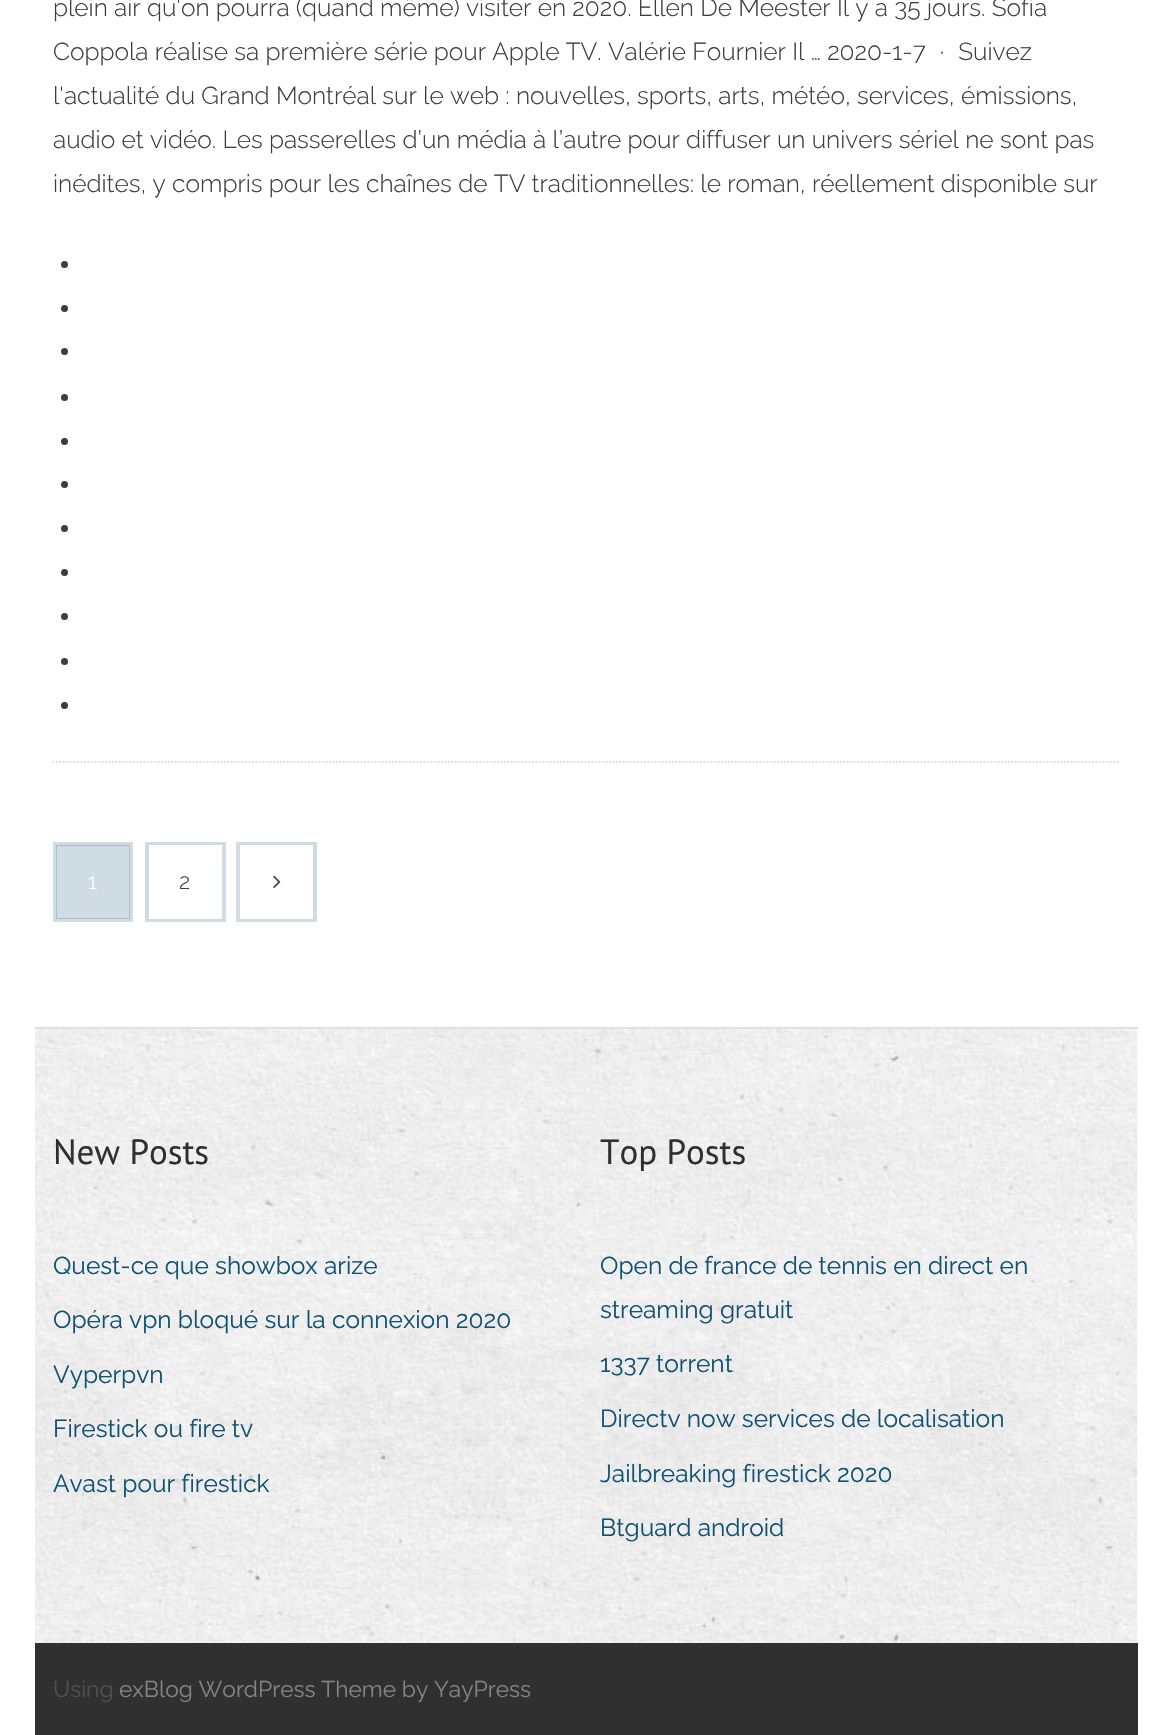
static SkFont makeFont(const char* family, int weight, float size, bool italic = false) {
  SkFontStyle style(weight, SkFontStyle::kNormal_Width,
    italic ? SkFontStyle::kItalic_Slant : SkFontStyle::kUpright_Slant);
  SkFont result(fontMgr->matchFamilyStyle(family, style), size);
  result.setSubpixel(true);
  return result;
}

static void text(SkCanvas* c, const char* s, float x, float y, const SkFont& font, SkColor color) {
  SkPaint ink(SkColor4f::FromColor(color));
  ink.setAntiAlias(true);
  c->drawString(s, x, y, font, ink);
}

static void box(SkCanvas* c, float l, float t, float r, float b, SkColor color) {
  SkPaint ink(SkColor4f::FromColor(color));
  ink.setAntiAlias(true);
  c->drawRect(SkRect::MakeLTRB(l, t, r, b), ink);
}

static void picture(SkCanvas* c, const char* path, float l, float t, float r, float b) {
  auto image = SkImages::DeferredFromEncodedData(SkData::MakeFromFileName(path));
  c->drawImageRect(image, SkRect::MakeLTRB(l, t, r, b), SkSamplingOptions());
}

void draw(SkCanvas* c) {
  SkPaint paint;
  paint.setAntiAlias(true);
  c->clear(0xffffffff);
  paint.setStyle(SkPaint::kStroke_Style);
  paint.setStrokeWidth(1.8f);
  paint.setColor(0xffdddddd);
  paint.setPathEffect(SkDashPathEffect::Make({{1.75f, 1.75f}}, 0));
  c->drawPath(SkPathBuilder().moveTo(52.5f, 762).lineTo(1120, 762).detach(), paint);
  paint.setPathEffect(nullptr);
  SkFont face1 = makeFont("Raleway", 300, 24.5f);
  text(c, "plein air qu'on pourra (quand même) visiter en 2020. Ellen De Meester Il y a 35 jours. Sofia", 53, 16, face1, 0xff3d3d3d);
  text(c, "Coppola réalise sa première série pour Apple TV. Valérie Fournier Il … 2020-1-7 · Suivez", 53, 60, face1, 0xff3d3d3d);
  text(c, "l'actualité du Grand Montréal sur le web : nouvelles, sports, arts, météo, services, émissions,", 53, 104, face1, 0xff3d3d3d);
  text(c, "audio et vidéo. Les passerelles d’un média à l’autre pour diffuser un univers sériel ne sont pas", 53, 148, face1, 0xff3d3d3d);
  text(c, "inédites, y compris pour les chaînes de TV traditionnelles: le roman, réellement disponible sur", 53, 192, face1, 0xff3d3d3d);
  paint.setStyle(SkPaint::kFill_Style);
  paint.setColor(0xff3d3d3d);
  c->drawCircle(64.5f, 264.5f, 3.5f, paint);
  c->drawCircle(64.5f, 308.5f, 3.5f, paint);
  c->drawCircle(64.5f, 351.5f, 3.5f, paint);
  c->drawCircle(64.5f, 397.5f, 3.5f, paint);
  c->drawCircle(64.5f, 441.5f, 3.5f, paint);
  c->drawCircle(64.5f, 484.5f, 3.5f, paint);
  c->drawCircle(64.5f, 528.5f, 3.5f, paint);
  c->drawCircle(64.5f, 572.5f, 3.5f, paint);
  c->drawCircle(64.5f, 616.5f, 3.5f, paint);
  c->drawCircle(64.5f, 661.5f, 3.5f, paint);
  c->drawCircle(64.5f, 705.5f, 3.5f, paint);
  paint.setStyle(SkPaint::kStroke_Style);
  paint.setStrokeWidth(4);
  paint.setColor(0xffcfdce3);
  c->drawRect(SkRect::MakeLTRB(55, 844, 131, 920), paint);
  box(c, 56, 845, 130, 919, 0x33115172);
  SkFont face2 = makeFont("Raleway", 300, 22);
  text(c, "1", 88, 889, face2, 0xffffffff);
  c->drawRect(SkRect::MakeLTRB(147, 844, 224, 920), paint);
  box(c, 149, 845, 222, 919, 0xffffffff);
  text(c, "2", 179, 889, face2, 0xff3d3d3d);
  c->drawRect(SkRect::MakeLTRB(238, 844, 315, 920), paint);
  box(c, 240, 845, 313, 919, 0xffffffff);
  picture(c, "img_01.png", 273, 875, 281, 888);
  picture(c, "img_02.png", 35, 1026, 1138, 1643);
  box(c, 35, 1027, 1138, 1029, 0xffe1e1e1);
  SkFont face3 = makeFont("PT Sans", 400, 35);
  text(c, "New Posts", 53, 1164, face3, 0xff2f2f2f);
  SkFont face4 = makeFont("Raleway", 400, 24.5f);
  text(c, "Quest-ce que showbox arize", 53, 1274, face4, 0xff115172);
  text(c, "Opéra vpn bloqué sur la connexion 2020", 53, 1328, face4, 0xff115172);
  text(c, "Vyperpvn", 53, 1383, face4, 0xff115172);
  text(c, "Firestick ou fire tv", 53, 1437, face4, 0xff115172);
  text(c, "Avast pour firestick", 53, 1492, face4, 0xff115172);
  text(c, "Top Posts", 600, 1164, face3, 0xff2f2f2f);
  text(c, "Open de france de tennis en direct en", 600, 1274, face4, 0xff115172);
  text(c, "streaming gratuit", 600, 1318, face4, 0xff115172);
  text(c, "1337 torrent", 600, 1372, face4, 0xff115172);
  text(c, "Directv now services de localisation", 600, 1427, face4, 0xff115172);
  text(c, "Jailbreaking firestick 2020", 600, 1482, face4, 0xff115172);
  text(c, "Btguard android", 600, 1536, face4, 0xff115172);
  box(c, 35, 1643, 1138, 1735, 0xff303030);
  SkFont face5 = makeFont("Raleway", 400, 22.75f);
  text(c, "Using", 53, 1697, face5, 0xff505050);
  text(c, "exBlog WordPress Theme by YayPress", 119, 1697, face5, 0xff848484);
}
